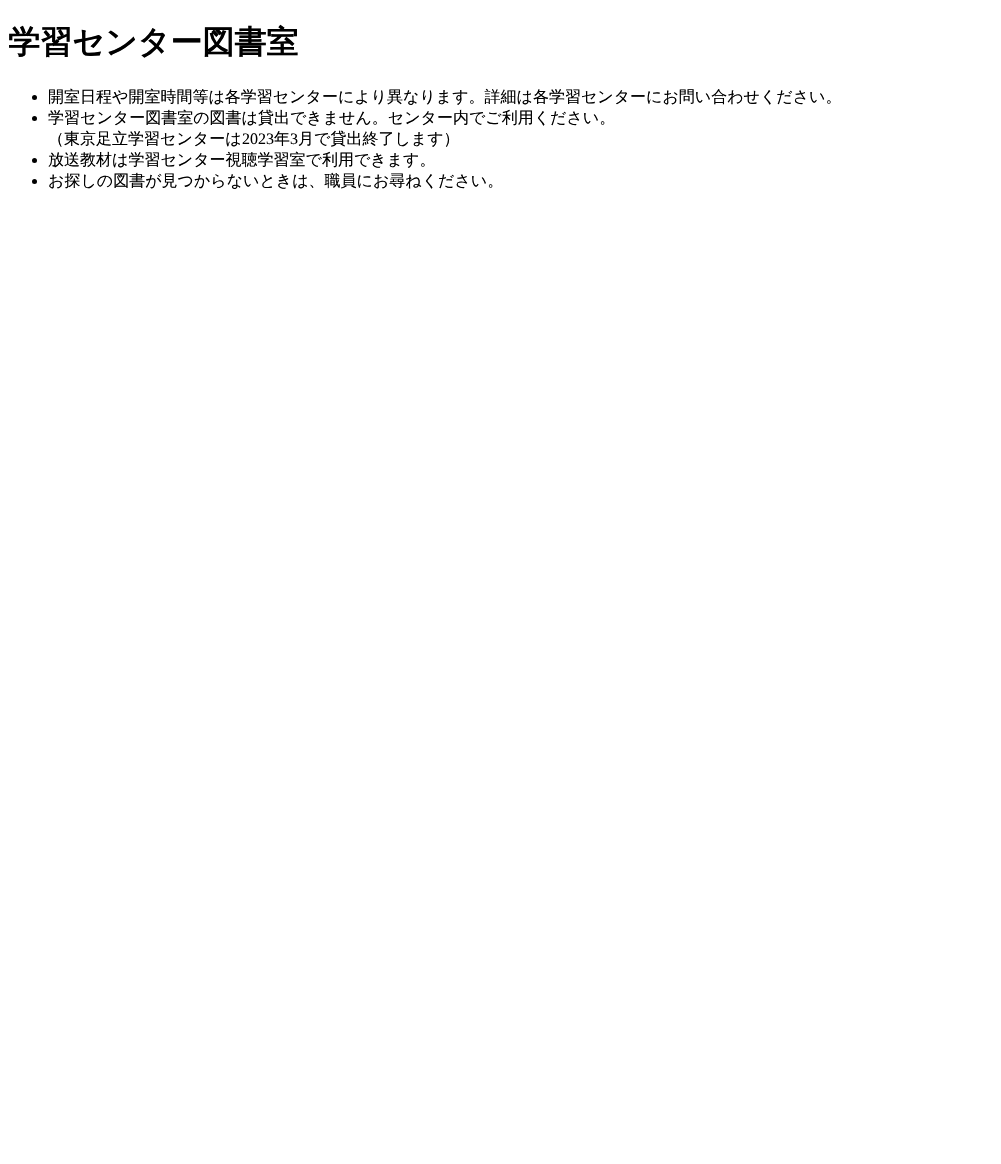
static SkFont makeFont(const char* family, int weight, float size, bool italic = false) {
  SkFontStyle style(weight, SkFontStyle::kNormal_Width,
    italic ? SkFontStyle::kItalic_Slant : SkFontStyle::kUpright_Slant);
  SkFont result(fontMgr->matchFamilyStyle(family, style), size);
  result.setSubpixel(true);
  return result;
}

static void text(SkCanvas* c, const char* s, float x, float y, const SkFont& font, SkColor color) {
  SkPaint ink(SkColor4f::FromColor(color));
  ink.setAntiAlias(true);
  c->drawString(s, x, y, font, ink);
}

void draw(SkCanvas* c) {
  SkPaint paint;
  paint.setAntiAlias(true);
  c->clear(0xffffffff);
  SkFont face1 = makeFont("WenQuanYi Zen Hei", 700, 32);
  text(c, "学習センター図書室", 8, 53, face1, 0xff000000);
  paint.setColor(0xff000000);
  c->drawCircle(34.5f, 97.5f, 2.5f, paint);
  SkFont face2 = makeFont("WenQuanYi Zen Hei", 500, 16);
  text(c, "開室日程や開室時間等は各学習センターにより異なります。詳細は各学習センターにお問い合わせください。", 48, 102, face2, 0xff000000);
  c->drawCircle(34.5f, 118.5f, 2.5f, paint);
  text(c, "学習センター図書室の図書は貸出できません。センター内でご利用ください。", 48, 123, face2, 0xff000000);
  text(c, "（東京足立学習センターは", 48, 144, face2, 0xff000000);
  SkFont face3 = makeFont("Liberation Serif", 400, 16);
  text(c, "2023", 242, 144, face3, 0xff000000);
  text(c, "年", 274, 144, face2, 0xff000000);
  text(c, "3", 290, 144, face3, 0xff000000);
  text(c, "月で貸出終了します）", 298, 144, face2, 0xff000000);
  c->drawCircle(34.5f, 160.5f, 2.5f, paint);
  text(c, "放送教材は学習センター視聴学習室で利用できます。", 48, 165, face2, 0xff000000);
  c->drawCircle(34.5f, 181.5f, 2.5f, paint);
  text(c, "お探しの図書が見つからないときは、職員にお尋ねください。", 48, 186, face2, 0xff000000);
}
